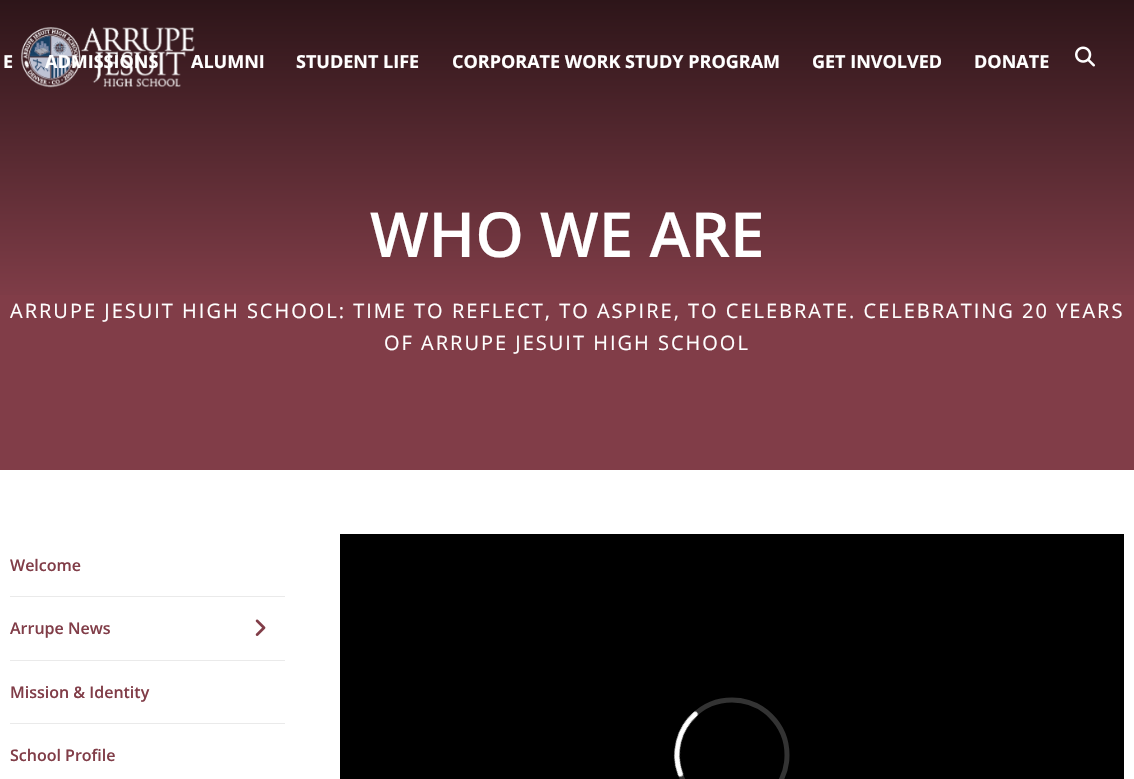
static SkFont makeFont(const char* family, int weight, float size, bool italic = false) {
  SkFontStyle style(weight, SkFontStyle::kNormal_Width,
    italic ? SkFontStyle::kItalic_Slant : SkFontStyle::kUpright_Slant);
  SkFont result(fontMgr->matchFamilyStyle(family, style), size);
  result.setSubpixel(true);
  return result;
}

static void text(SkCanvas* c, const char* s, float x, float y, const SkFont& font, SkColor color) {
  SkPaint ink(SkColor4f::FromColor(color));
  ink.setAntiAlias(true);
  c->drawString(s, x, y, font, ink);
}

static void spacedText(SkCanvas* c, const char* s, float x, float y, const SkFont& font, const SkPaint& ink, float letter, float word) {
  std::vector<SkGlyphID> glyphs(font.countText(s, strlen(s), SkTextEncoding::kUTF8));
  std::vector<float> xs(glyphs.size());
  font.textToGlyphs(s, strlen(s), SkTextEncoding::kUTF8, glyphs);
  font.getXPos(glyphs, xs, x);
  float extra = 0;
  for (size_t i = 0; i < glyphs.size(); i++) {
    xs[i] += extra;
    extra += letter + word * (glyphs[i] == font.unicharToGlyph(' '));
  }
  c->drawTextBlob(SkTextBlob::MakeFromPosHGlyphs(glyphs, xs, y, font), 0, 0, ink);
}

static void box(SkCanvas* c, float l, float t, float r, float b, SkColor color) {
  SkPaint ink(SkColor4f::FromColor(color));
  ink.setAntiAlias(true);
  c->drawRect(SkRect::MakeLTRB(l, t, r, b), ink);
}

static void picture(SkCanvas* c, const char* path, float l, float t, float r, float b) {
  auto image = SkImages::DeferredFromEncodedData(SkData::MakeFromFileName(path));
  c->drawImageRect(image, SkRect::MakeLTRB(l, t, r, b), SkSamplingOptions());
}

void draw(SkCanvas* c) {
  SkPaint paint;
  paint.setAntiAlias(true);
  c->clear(0xff813d48);
  {
    const SkColor colors[] = {0xff2d1519, 0xff803d48};
    const float stops[] = {0, 1};
    const SkPoint ends[] = {{567, 0}, {567, 300}};
    paint.setShader(SkGradientShader::MakeLinear(ends, colors, stops, 2, SkTileMode::kClamp));
    paint.setAlpha(255);
  }
  c->drawRect(SkRect::MakeLTRB(0, 0, 1134, 295), paint);
  picture(c, "img_01.png", 21, 27, 195, 88);
  picture(c, "img_02.png", 1075, 46, 1095, 67);
  SkFont face1 = makeFont("Open Sans", 700, 18);
  text(c, "E", 3, 68, face1, 0xffffffff);
  text(c, "ADMISSIONS", 45, 68, face1, 0xffffffff);
  text(c, "ALUMNI", 191, 68, face1, 0xffffffff);
  text(c, "STUDENT LIFE", 296, 68, face1, 0xffffffff);
  text(c, "CORPORATE WORK STUDY PROGRAM", 452, 68, face1, 0xffffffff);
  text(c, "GET INVOLVED", 812, 68, face1, 0xffffffff);
  text(c, "DONATE", 974, 68, face1, 0xffffffff);
  SkFont face2 = makeFont("Open Sans", 600, 62);
  text(c, "WHO WE ARE", 370, 257, face2, 0xffffffff);
  SkFont face3 = makeFont("Open Sans", 400, 20);
  paint.setShader(nullptr);
  paint.setColor(0xffffffff);
  spacedText(c, "ARRUPE JESUIT HIGH SCHOOL: TIME TO REFLECT, TO ASPIRE, TO CELEBRATE. CELEBRATING 20 YEARS", 10, 318, face3, paint, 2, 0);
  spacedText(c, "OF ARRUPE JESUIT HIGH SCHOOL", 384, 350, face3, paint, 2, 0);
  box(c, 0, 470, 1134, 779, 0xffffffff);
  box(c, 10, 596, 285, 597, 0xffeaeaea);
  SkFont face4 = makeFont("Open Sans", 600, 16);
  text(c, "Welcome", 10, 571, face4, 0xff813d48);
  box(c, 10, 660, 285, 661, 0xffeaeaea);
  text(c, "Arrupe News", 10, 634, face4, 0xff813d48);
  picture(c, "img_03.png", 255, 619, 266, 636);
  box(c, 10, 723, 285, 724, 0xffeaeaea);
  text(c, "Mission & Identity", 10, 698, face4, 0xff813d48);
  text(c, "School Profile", 10, 761, face4, 0xff813d48);
  picture(c, "img_04.png", 340, 534, 1124, 779);
}
